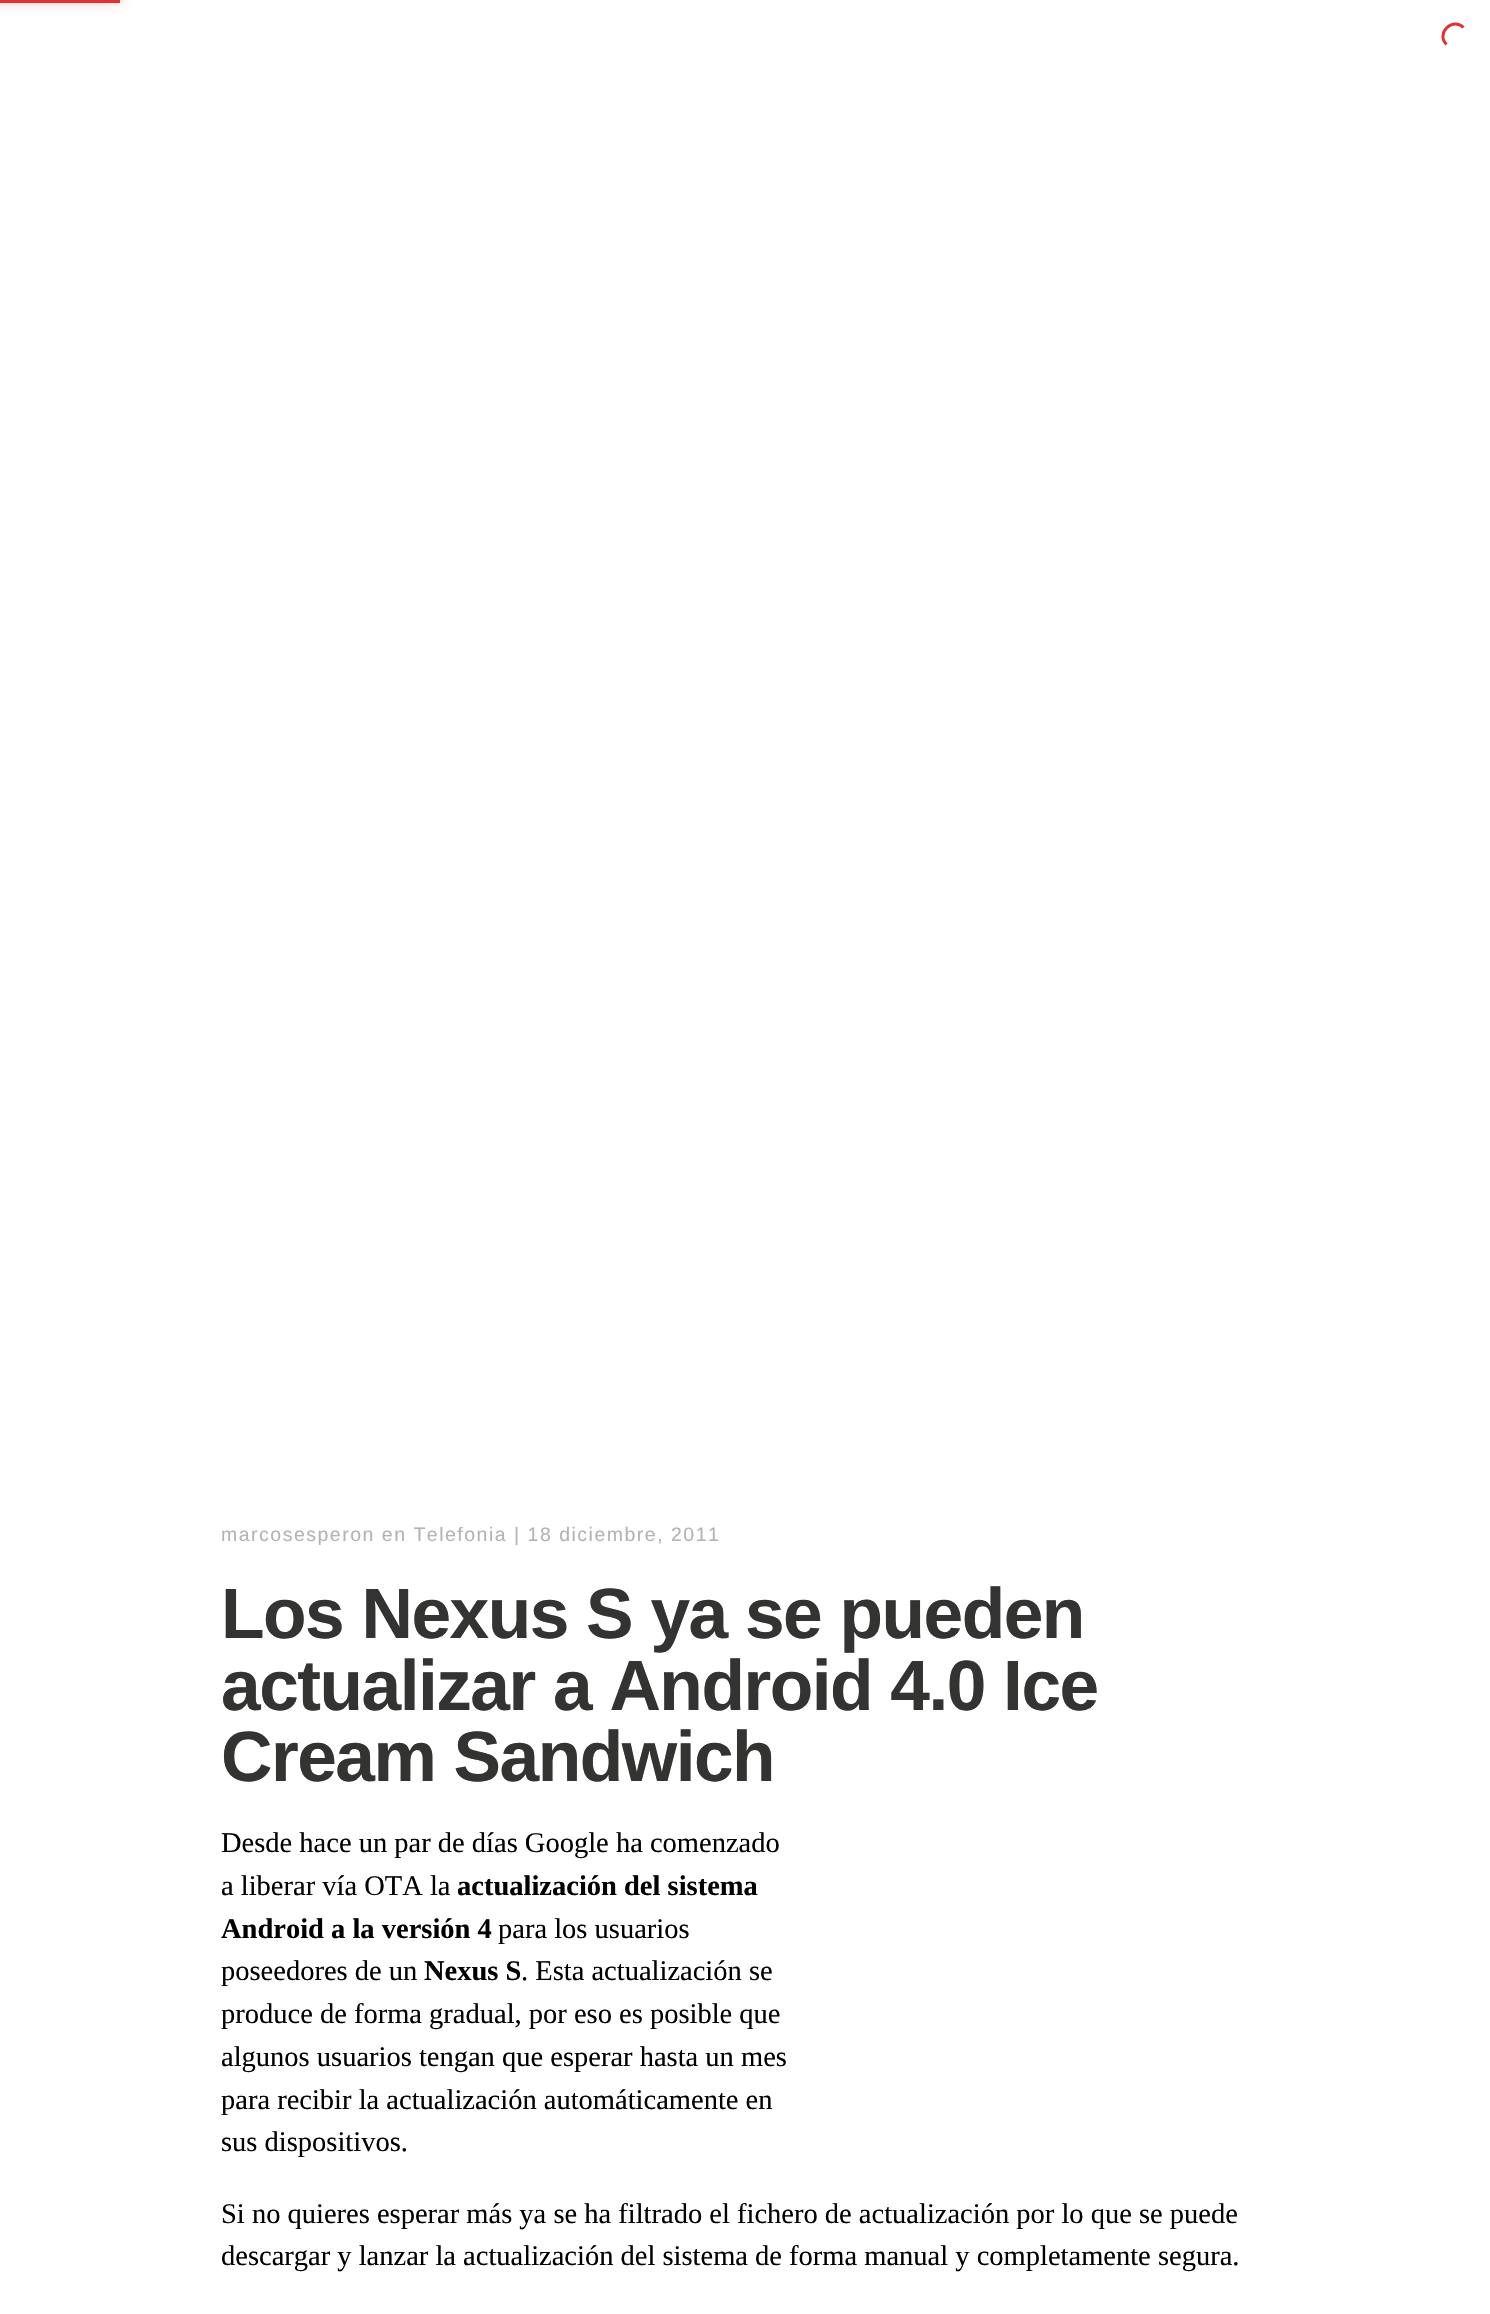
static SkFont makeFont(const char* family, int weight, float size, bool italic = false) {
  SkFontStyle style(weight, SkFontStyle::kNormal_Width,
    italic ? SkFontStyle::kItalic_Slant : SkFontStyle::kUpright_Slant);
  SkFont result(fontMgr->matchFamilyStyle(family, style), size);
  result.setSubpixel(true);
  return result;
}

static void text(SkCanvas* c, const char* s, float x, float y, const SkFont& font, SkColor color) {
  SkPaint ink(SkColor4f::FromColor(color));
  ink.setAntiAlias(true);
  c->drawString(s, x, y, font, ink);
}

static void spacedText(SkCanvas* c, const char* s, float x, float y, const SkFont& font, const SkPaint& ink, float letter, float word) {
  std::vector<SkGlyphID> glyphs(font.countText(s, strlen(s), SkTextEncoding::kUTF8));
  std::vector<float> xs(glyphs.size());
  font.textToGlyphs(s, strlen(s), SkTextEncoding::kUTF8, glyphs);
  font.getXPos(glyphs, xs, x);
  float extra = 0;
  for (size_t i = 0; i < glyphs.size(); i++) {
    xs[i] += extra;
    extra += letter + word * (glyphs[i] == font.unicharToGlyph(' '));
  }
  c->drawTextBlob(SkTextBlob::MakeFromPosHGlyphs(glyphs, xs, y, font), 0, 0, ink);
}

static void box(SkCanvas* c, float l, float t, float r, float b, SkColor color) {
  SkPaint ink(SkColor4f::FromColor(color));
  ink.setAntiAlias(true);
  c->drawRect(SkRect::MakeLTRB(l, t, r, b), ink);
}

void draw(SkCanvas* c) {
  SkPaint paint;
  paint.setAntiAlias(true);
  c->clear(0xffffffff);
  box(c, 0, 0, 120, 3, 0xffdd3333);
  paint.setColor(0xffdd3333);
  paint.setMaskFilter(SkMaskFilter::MakeBlur(kNormal_SkBlurStyle, 4));
  c->drawRect(SkRect::MakeLTRB(-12, -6, 120, -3), paint);
  paint.setMaskFilter(nullptr);
  paint.setMaskFilter(SkMaskFilter::MakeBlur(kNormal_SkBlurStyle, 7.5f));
  c->drawRect(SkRect::MakeLTRB(-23, -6, 120, -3), paint);
  paint.setMaskFilter(nullptr);
  paint.setStyle(SkPaint::kStroke_Style);
  paint.setStrokeWidth(3);
  c->drawPath(SkPathBuilder().moveTo(1446.5f, 44.5f).cubicTo(1435.5f, 33.5f, 1452.5f, 16.5f, 1463.5f, 27.5f).detach(), paint);
  SkFont face1 = makeFont("Liberation Sans", 400, 19.5f);
  paint.setStyle(SkPaint::kFill_Style);
  paint.setColor(0xffb3b3b1);
  spacedText(c, "marcosesperon en Telefonia | 18 diciembre, 2011", 221, 1541, face1, paint, 1.5f, 0);
  SkFont face2 = makeFont("Liberation Sans", 700, 71.25f);
  paint.setColor(0xff333332);
  spacedText(c, "Los Nexus S ya se pueden", 221, 1638, face2, paint, -1.5f, 0);
  spacedText(c, "actualizar a Android 4.0 Ice", 221, 1710, face2, paint, -1.5f, 0);
  spacedText(c, "Cream Sandwich", 221, 1781, face2, paint, -1.5f, 0);
  SkFont face3 = makeFont("Liberation Serif", 400, 28.5f);
  text(c, "Desde hace un par de días Google ha comenzado", 221, 1852, face3, 0xff000000);
  text(c, "a liberar vía OTA la", 221, 1895, face3, 0xff000000);
  SkFont face4 = makeFont("Liberation Serif", 700, 28.5f);
  text(c, "actualización del sistema", 457, 1895, face4, 0xff000000);
  text(c, "Android a la versión 4", 221, 1938, face4, 0xff000000);
  text(c, "para los usuarios", 498, 1938, face3, 0xff000000);
  text(c, "poseedores de un", 221, 1980, face3, 0xff000000);
  text(c, "Nexus S", 424, 1980, face4, 0xff000000);
  text(c, ". Esta actualización se", 521, 1980, face3, 0xff000000);
  text(c, "produce de forma gradual, por eso es posible que", 221, 2023, face3, 0xff000000);
  text(c, "algunos usuarios tengan que esperar hasta un mes", 221, 2066, face3, 0xff000000);
  text(c, "para recibir la actualización automáticamente en", 221, 2109, face3, 0xff000000);
  text(c, "sus dispositivos.", 221, 2151, face3, 0xff000000);
  text(c, "Si no quieres esperar más ya se ha filtrado el fichero de actualización por lo que se puede", 221, 2223, face3, 0xff000000);
  text(c, "descargar y lanzar la actualización del sistema de forma manual y completamente segura.", 221, 2265, face3, 0xff000000);
}
